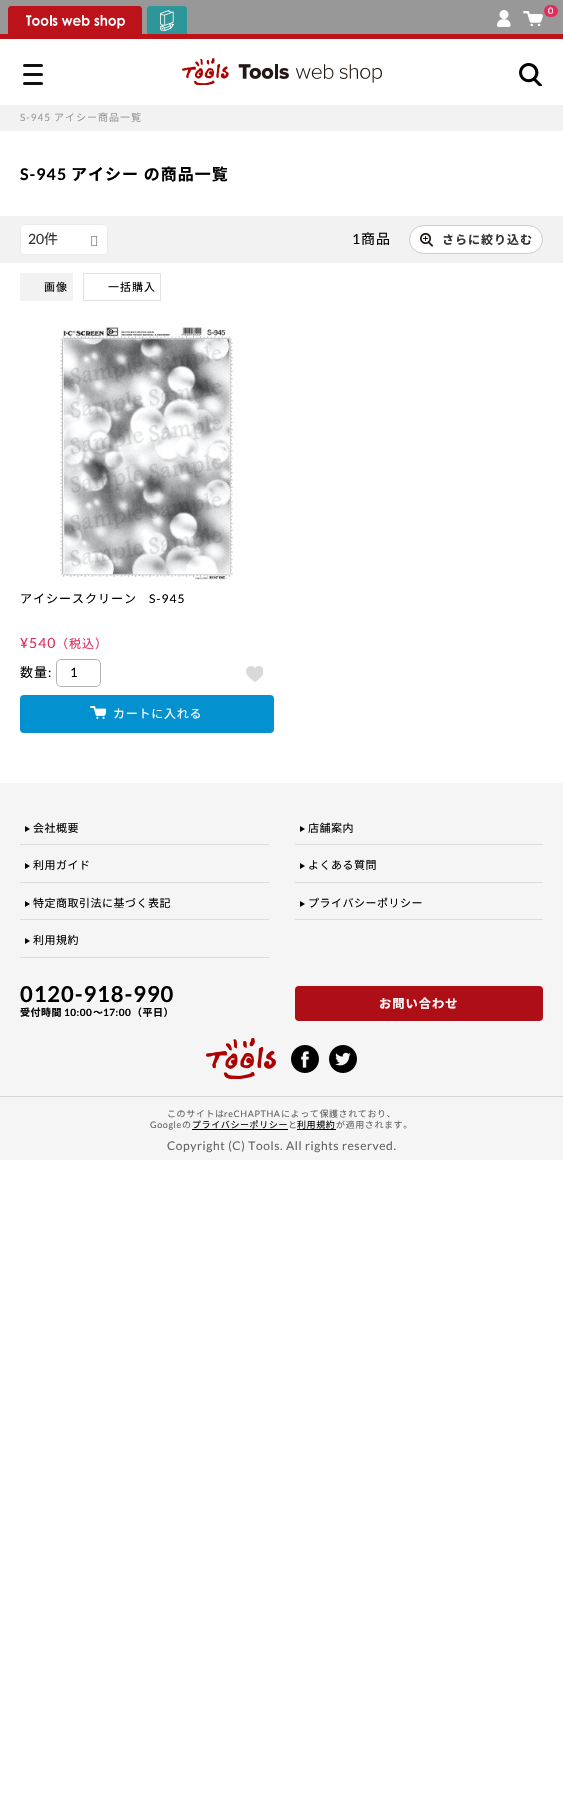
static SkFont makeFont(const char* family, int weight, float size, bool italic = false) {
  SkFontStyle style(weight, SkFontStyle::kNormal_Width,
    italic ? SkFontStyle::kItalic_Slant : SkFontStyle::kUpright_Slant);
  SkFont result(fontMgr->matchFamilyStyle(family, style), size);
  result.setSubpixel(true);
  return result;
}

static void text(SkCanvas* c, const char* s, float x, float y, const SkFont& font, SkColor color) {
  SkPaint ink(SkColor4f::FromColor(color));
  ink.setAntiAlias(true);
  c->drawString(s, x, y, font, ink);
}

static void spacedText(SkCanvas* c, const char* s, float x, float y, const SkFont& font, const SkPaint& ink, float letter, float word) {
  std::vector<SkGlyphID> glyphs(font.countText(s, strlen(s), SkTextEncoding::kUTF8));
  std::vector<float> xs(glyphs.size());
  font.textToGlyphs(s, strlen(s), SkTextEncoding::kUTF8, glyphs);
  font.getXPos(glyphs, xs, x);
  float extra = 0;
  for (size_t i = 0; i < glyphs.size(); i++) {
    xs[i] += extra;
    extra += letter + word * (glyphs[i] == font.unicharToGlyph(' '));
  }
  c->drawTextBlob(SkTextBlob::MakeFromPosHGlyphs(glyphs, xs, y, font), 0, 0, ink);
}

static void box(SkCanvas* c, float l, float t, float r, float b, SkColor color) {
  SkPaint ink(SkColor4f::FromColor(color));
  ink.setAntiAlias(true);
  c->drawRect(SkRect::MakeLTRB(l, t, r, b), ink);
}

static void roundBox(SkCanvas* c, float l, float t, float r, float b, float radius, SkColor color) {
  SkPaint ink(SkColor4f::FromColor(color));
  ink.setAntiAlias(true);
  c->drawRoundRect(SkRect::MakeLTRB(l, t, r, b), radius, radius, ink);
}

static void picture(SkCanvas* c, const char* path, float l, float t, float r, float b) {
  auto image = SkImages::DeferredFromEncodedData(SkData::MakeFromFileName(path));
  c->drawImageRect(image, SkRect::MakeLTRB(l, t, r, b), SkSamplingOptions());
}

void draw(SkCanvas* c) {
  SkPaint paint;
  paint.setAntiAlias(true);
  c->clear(0xffffffff);
  box(c, 0, 0, 563, 34, 0xff999899);
  paint.setColor(0xffbc121a);
  c->drawPath(SkPathBuilder().moveTo(11, 6).lineTo(139, 6).cubicTo(140.5f, 6, 142, 7.5f, 142, 9).lineTo(142, 34).lineTo(8, 34).lineTo(8, 9).cubicTo(8, 7.5f, 9.5f, 6, 11, 6).close().detach(), paint);
  picture(c, "img_01.png", 26, 15, 125, 29);
  paint.setColor(0xff2d9699);
  c->drawPath(SkPathBuilder().moveTo(150, 6).lineTo(184, 6).cubicTo(185.5f, 6, 187, 7.5f, 187, 9).lineTo(187, 34).lineTo(147, 34).lineTo(147, 9).cubicTo(147, 7.5f, 148.5f, 6, 150, 6).close().detach(), paint);
  picture(c, "img_02.png", 160, 10, 174, 31);
  picture(c, "img_03.png", 497, 10, 511, 27);
  picture(c, "img_04.png", 523, 11, 543, 26);
  roundBox(c, 544, 5, 558, 17, 6, 0xffe12d5c);
  SkFont face1 = makeFont("Lato", 400, 9);
  paint.setColor(0xffffffff);
  spacedText(c, "0", 548, 14, face1, paint, 1, 0);
  box(c, 0, 34, 563, 39, 0xffbc121a);
  roundBox(c, 23, 64, 43, 67, 1.5f, 0xff111111);
  roundBox(c, 23, 73, 43, 76, 1.5f, 0xff111111);
  roundBox(c, 23, 82, 43, 85, 1.5f, 0xff111111);
  picture(c, "img_05.png", 182, 58, 382, 85);
  picture(c, "img_06.png", 519, 63, 542, 86);
  box(c, 0, 105, 563, 131, 0xfff2f2f2);
  SkFont face2 = makeFont("Lato", 400, 10);
  paint.setColor(0xff999999);
  spacedText(c, "S-945", 20, 121, face2, paint, 1, 0);
  SkFont face3 = makeFont("Noto Sans JP", 400, 10);
  spacedText(c, "アイシー商品一覧", 54, 121, face3, paint, 1, 0);
  SkFont face4 = makeFont("Lato", 700, 16);
  paint.setColor(0xff000000);
  spacedText(c, "S-945", 20, 180, face4, paint, 1, 0);
  SkFont face5 = makeFont("Noto Sans JP", 700, 16);
  spacedText(c, "アイシー の商品一覧", 71, 180, face5, paint, 1, 0);
  box(c, 0, 216, 563, 263, 0xfff2f2f2);
  roundBox(c, 20, 224, 108, 255, 5, 0xffffffff);
  picture(c, "img_07.png", 91, 236, 98, 246);
  paint.setStyle(SkPaint::kStroke_Style);
  paint.setStrokeWidth(1);
  paint.setColor(0xffebebeb);
  c->drawRoundRect(SkRect::MakeLTRB(20.5f, 224.5f, 107.5f, 254.5f), 4.5f, 4.5f, paint);
  SkFont face6 = makeFont("Lato", 400, 14);
  text(c, "20", 28, 244, face6, 0xff333333);
  SkFont face7 = makeFont("Noto Sans JP", 400, 14);
  text(c, "件", 44, 244, face7, 0xff333333);
  paint.setStyle(SkPaint::kFill_Style);
  paint.setColor(0xff000000);
  spacedText(c, "1", 352, 244, face6, paint, 1, 0);
  spacedText(c, "商品", 361, 244, face7, paint, 1, 0);
  paint.setColor(0xffffffff);
  c->drawRoundRect(SkRect::MakeLTRB(409.5f, 225.5f, 542.5f, 253.5f), 14, 14, paint);
  paint.setStyle(SkPaint::kStroke_Style);
  paint.setColor(0xffcccccc);
  c->drawRoundRect(SkRect::MakeLTRB(409.5f, 225.5f, 542.5f, 253.5f), 14, 14, paint);
  picture(c, "img_08.png", 420, 233, 433, 247);
  SkFont face8 = makeFont("Noto Sans JP", 700, 12);
  paint.setStyle(SkPaint::kFill_Style);
  paint.setColor(0xff333333);
  spacedText(c, "さらに絞り込む", 442, 244, face8, paint, 1, 0);
  box(c, 20, 273, 73, 301, 0xfff2f2f2);
  SkFont face9 = makeFont("Noto Sans JP", 400, 11);
  paint.setColor(0xff000000);
  spacedText(c, "画像", 44, 291, face9, paint, 1, 0);
  paint.setStyle(SkPaint::kStroke_Style);
  paint.setColor(0xffe2e2e2);
  c->drawRect(SkRect::MakeLTRB(83.5f, 273.5f, 160.5f, 300.5f), paint);
  paint.setStyle(SkPaint::kFill_Style);
  paint.setColor(0xff000000);
  spacedText(c, "一括購入", 108, 291, face9, paint, 1, 0);
  picture(c, "img_09.png", 60, 326, 233, 580);
  SkFont face10 = makeFont("Noto Sans JP", 400, 12);
  spacedText(c, "アイシースクリーン", 20, 603, face10, paint, 1, 0);
  SkFont face11 = makeFont("Lato", 400, 12);
  spacedText(c, "S-945", 149, 603, face11, paint, 1, 0);
  paint.setColor(0xffe12d5c);
  spacedText(c, "¥540", 20, 648, face6, paint, 1, 0);
  spacedText(c, "（税込）", 56, 648, face10, paint, 1, 0);
  SkFont face12 = makeFont("Noto Sans JP", 400, 13);
  paint.setColor(0xff000000);
  spacedText(c, "数量", 20, 677, face12, paint, 1, 0);
  SkFont face13 = makeFont("Lato", 400, 13);
  spacedText(c, ":", 48, 677, face13, paint, 1, 0);
  paint.setStyle(SkPaint::kStroke_Style);
  paint.setColor(0xffb3b3b3);
  c->drawRoundRect(SkRect::MakeLTRB(56.5f, 659.5f, 100.5f, 686.5f), 4.5f, 4.5f, paint);
  text(c, "1", 70, 677, face13, 0xff000000);
  picture(c, "img_10.png", 246, 666, 263, 682);
  roundBox(c, 20, 695, 274, 733, 4, 0xff0391cf);
  picture(c, "img_11.png", 90, 706, 106, 719);
  paint.setStyle(SkPaint::kFill_Style);
  paint.setColor(0xffffffff);
  spacedText(c, "カートに入れる", 113, 718, face10, paint, 0.75f, 0);
  box(c, 0, 783, 563, 1160, 0xfff5f5f5);
  box(c, 20, 844, 269, 845, 0xffdcdcdc);
  paint.setColor(0xff000000);
  c->drawPath(SkPathBuilder().moveTo(25, 832).lineTo(25, 826).lineTo(30, 829).close().detach(), paint);
  spacedText(c, "会社概要", 33, 832, face9, paint, 0.5f, 0);
  box(c, 295, 844, 543, 845, 0xffdcdcdc);
  c->drawPath(SkPathBuilder().moveTo(300, 832).lineTo(300, 826).lineTo(305, 829).close().detach(), paint);
  spacedText(c, "店舗案内", 308, 832, face9, paint, 0.5f, 0);
  box(c, 20, 882, 269, 883, 0xffdcdcdc);
  c->drawPath(SkPathBuilder().moveTo(25, 869).lineTo(25, 863).lineTo(30, 866).close().detach(), paint);
  spacedText(c, "利用ガイド", 33, 869, face9, paint, 0.5f, 0);
  box(c, 295, 882, 543, 883, 0xffdcdcdc);
  c->drawPath(SkPathBuilder().moveTo(300, 869).lineTo(300, 863).lineTo(305, 866).close().detach(), paint);
  spacedText(c, "よくある質問", 308, 869, face9, paint, 0.5f, 0);
  box(c, 20, 919, 269, 920, 0xffdcdcdc);
  c->drawPath(SkPathBuilder().moveTo(25, 907).lineTo(25, 901).lineTo(30, 904).close().detach(), paint);
  spacedText(c, "特定商取引法に基づく表記", 33, 907, face9, paint, 0.5f, 0);
  box(c, 295, 919, 543, 920, 0xffdcdcdc);
  c->drawPath(SkPathBuilder().moveTo(300, 907).lineTo(300, 901).lineTo(305, 904).close().detach(), paint);
  spacedText(c, "プライバシーポリシー", 308, 907, face9, paint, 0.5f, 0);
  box(c, 20, 957, 269, 958, 0xffdcdcdc);
  c->drawPath(SkPathBuilder().moveTo(25, 944).lineTo(25, 938).lineTo(30, 941).close().detach(), paint);
  spacedText(c, "利用規約", 33, 944, face9, paint, 0.5f, 0);
  SkFont face14 = makeFont("Lato", 700, 22);
  spacedText(c, "0120-918-990", 20, 1002, face14, paint, 0.9f, 0);
  SkFont face15 = makeFont("Noto Sans JP", 700, 10);
  spacedText(c, "受付時間", 20, 1016, face15, paint, 0.5f, 0);
  SkFont face16 = makeFont("Lato", 700, 10);
  spacedText(c, "10:00", 64, 1016, face16, paint, 0.5f, 0);
  spacedText(c, "～", 93, 1016, face15, paint, 0.5f, 0);
  spacedText(c, "17:00", 103, 1016, face16, paint, 0.5f, 0);
  spacedText(c, "（平日）", 132, 1016, face15, paint, 0.5f, 0);
  roundBox(c, 295, 986, 543, 1021, 4, 0xffae0e16);
  SkFont face17 = makeFont("Noto Sans JP", 700, 12.25f);
  paint.setColor(0xffffffff);
  spacedText(c, "お問い合わせ", 379, 1008, face17, paint, 1, 0);
  picture(c, "img_12.png", 206, 1038, 276, 1079);
  picture(c, "img_13.png", 291, 1045, 319, 1073);
  picture(c, "img_14.png", 329, 1045, 357, 1073);
  box(c, 0, 1096, 563, 1097, 0xffd6d6d6);
  SkFont face18 = makeFont("Noto Sans JP", 400, 9);
  paint.setColor(0xff646464);
  spacedText(c, "このサイトは", 167, 1117, face18, paint, 0.6f, 0);
  spacedText(c, "reCHAPTHA", 224, 1117, face1, paint, 0.6f, 0);
  spacedText(c, "によって保護されており、", 281, 1117, face18, paint, 0.6f, 0);
  spacedText(c, "Google", 150, 1128, face1, paint, 0.6f, 0);
  spacedText(c, "の", 182, 1128, face18, paint, 0.6f, 0);
  paint.setColor(0xff000000);
  spacedText(c, "プライバシーポリシー", 192, 1128, face18, paint, 0.6f, 0);
  box(c, 192, 1129, 288, 1130, 0xff000000);
  paint.setColor(0xff646464);
  spacedText(c, "と", 288, 1128, face18, paint, 0.6f, 0);
  paint.setColor(0xff000000);
  spacedText(c, "利用規約", 297, 1128, face18, paint, 0.6f, 0);
  box(c, 297, 1129, 336, 1130, 0xff000000);
  paint.setColor(0xff646464);
  spacedText(c, "が適用されます。", 336, 1128, face18, paint, 0.6f, 0);
  spacedText(c, "Copyright (C) Tools. All rights reserved.", 167, 1150, face11, paint, 0.6f, 0);
}
